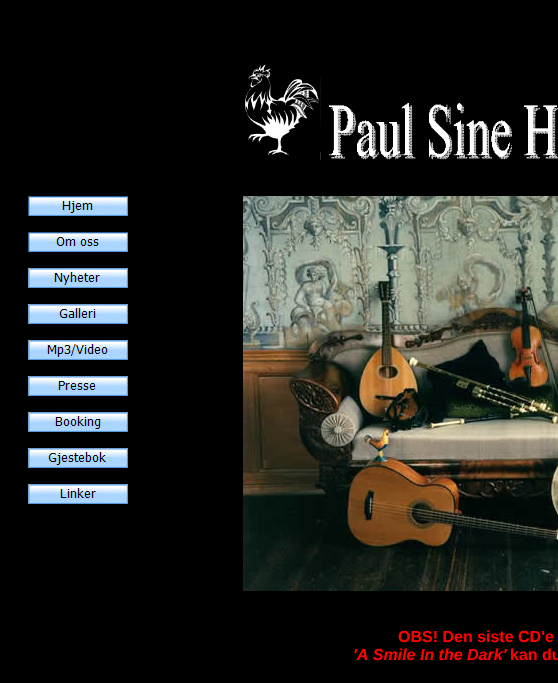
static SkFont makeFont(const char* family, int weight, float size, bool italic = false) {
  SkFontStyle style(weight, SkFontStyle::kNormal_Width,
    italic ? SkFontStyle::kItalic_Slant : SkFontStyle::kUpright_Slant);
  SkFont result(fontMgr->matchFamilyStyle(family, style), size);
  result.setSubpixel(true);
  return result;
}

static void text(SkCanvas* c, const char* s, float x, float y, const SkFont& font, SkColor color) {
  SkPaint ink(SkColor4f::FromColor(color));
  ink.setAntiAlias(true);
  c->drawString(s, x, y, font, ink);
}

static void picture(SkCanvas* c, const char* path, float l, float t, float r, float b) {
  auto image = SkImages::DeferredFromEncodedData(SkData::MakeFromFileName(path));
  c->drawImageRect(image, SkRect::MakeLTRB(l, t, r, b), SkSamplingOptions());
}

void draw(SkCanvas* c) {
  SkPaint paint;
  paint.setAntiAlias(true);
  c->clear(0xff000000);
  picture(c, "img_01.png", 245, 64, 321, 160);
  picture(c, "img_02.png", 329, 103, 558, 160);
  picture(c, "img_03.png", 28, 196, 128, 216);
  picture(c, "img_04.png", 28, 232, 128, 252);
  picture(c, "img_05.png", 28, 268, 128, 288);
  picture(c, "img_06.png", 28, 304, 128, 324);
  picture(c, "img_07.png", 28, 340, 128, 360);
  picture(c, "img_08.png", 28, 376, 128, 396);
  picture(c, "img_09.png", 28, 412, 128, 432);
  picture(c, "img_10.png", 28, 448, 128, 468);
  picture(c, "img_11.png", 28, 484, 128, 504);
  picture(c, "img_12.png", 243, 196, 558, 591);
  SkFont face1 = makeFont("Liberation Sans", 700, 16);
  text(c, "OBS! Den siste CD'e", 398, 642, face1, 0xffff0000);
  SkFont face2 = makeFont("Liberation Sans", 700, 16, true);
  text(c, "'A Smile In the Dark'", 353, 660, face2, 0xffff0000);
  text(c, "kan du", 510, 660, face1, 0xffff0000);
}
